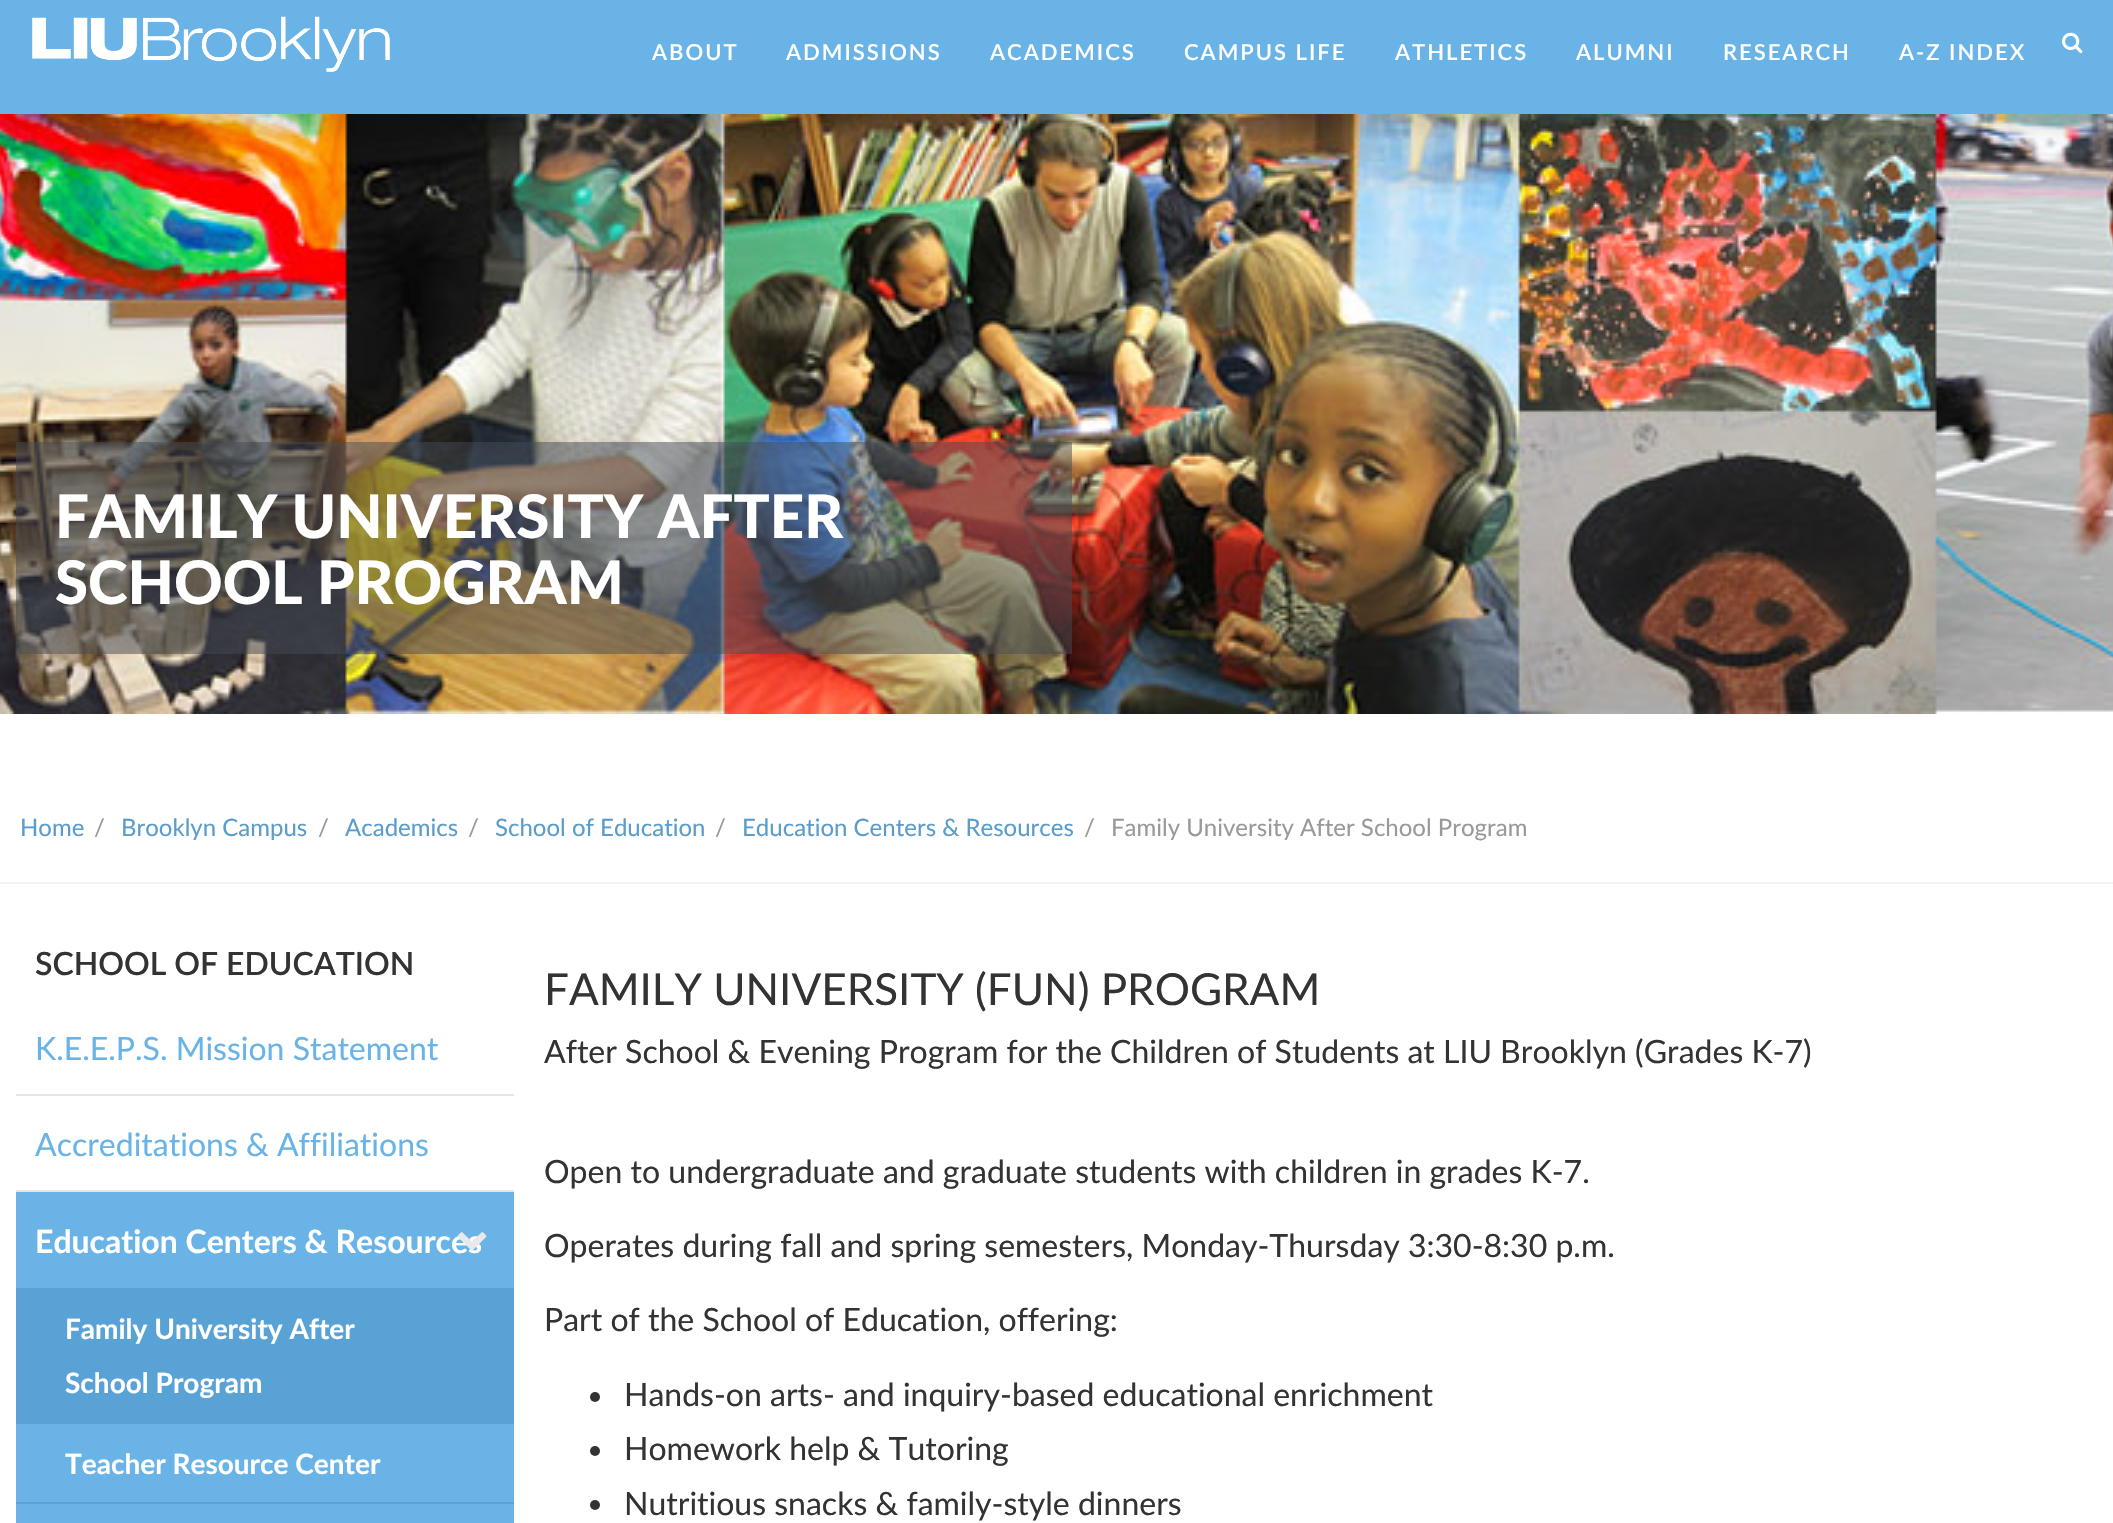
static SkFont makeFont(const char* family, int weight, float size, bool italic = false) {
  SkFontStyle style(weight, SkFontStyle::kNormal_Width,
    italic ? SkFontStyle::kItalic_Slant : SkFontStyle::kUpright_Slant);
  SkFont result(fontMgr->matchFamilyStyle(family, style), size);
  result.setSubpixel(true);
  return result;
}

static void text(SkCanvas* c, const char* s, float x, float y, const SkFont& font, SkColor color) {
  SkPaint ink(SkColor4f::FromColor(color));
  ink.setAntiAlias(true);
  c->drawString(s, x, y, font, ink);
}

static void spacedText(SkCanvas* c, const char* s, float x, float y, const SkFont& font, const SkPaint& ink, float letter, float word) {
  std::vector<SkGlyphID> glyphs(font.countText(s, strlen(s), SkTextEncoding::kUTF8));
  std::vector<float> xs(glyphs.size());
  font.textToGlyphs(s, strlen(s), SkTextEncoding::kUTF8, glyphs);
  font.getXPos(glyphs, xs, x);
  float extra = 0;
  for (size_t i = 0; i < glyphs.size(); i++) {
    xs[i] += extra;
    extra += letter + word * (glyphs[i] == font.unicharToGlyph(' '));
  }
  c->drawTextBlob(SkTextBlob::MakeFromPosHGlyphs(glyphs, xs, y, font), 0, 0, ink);
}

static void box(SkCanvas* c, float l, float t, float r, float b, SkColor color) {
  SkPaint ink(SkColor4f::FromColor(color));
  ink.setAntiAlias(true);
  c->drawRect(SkRect::MakeLTRB(l, t, r, b), ink);
}

static void picture(SkCanvas* c, const char* path, float l, float t, float r, float b) {
  auto image = SkImages::DeferredFromEncodedData(SkData::MakeFromFileName(path));
  c->drawImageRect(image, SkRect::MakeLTRB(l, t, r, b), SkSamplingOptions());
}

void draw(SkCanvas* c) {
  SkPaint paint;
  paint.setAntiAlias(true);
  c->clear(0xffffffff);
  picture(c, "img_03.png", 0, 114, 2113, 714);
  paint.setColor(0x1a000000);
  paint.setMaskFilter(SkMaskFilter::MakeBlur(kNormal_SkBlurStyle, 9));
  c->drawRect(SkRect::MakeLTRB(0, 16, 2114, 130), paint);
  paint.setMaskFilter(nullptr);
  box(c, 0, 0, 2113, 114, 0xff69b3e7);
  picture(c, "img_01.png", 32, 16, 390, 72);
  SkFont face1 = makeFont("Lato", 600, 22);
  paint.setColor(0xffffffff);
  spacedText(c, "ABOUT", 652, 60, face1, paint, 2, 0);
  spacedText(c, "ADMISSIONS", 786, 60, face1, paint, 2, 0);
  spacedText(c, "ACADEMICS", 990, 60, face1, paint, 2, 0);
  spacedText(c, "CAMPUS LIFE", 1184, 60, face1, paint, 2, 0);
  spacedText(c, "ATHLETICS", 1395, 60, face1, paint, 2, 0);
  spacedText(c, "ALUMNI", 1576, 60, face1, paint, 2, 0);
  spacedText(c, "RESEARCH", 1723, 60, face1, paint, 2, 0);
  spacedText(c, "A-Z INDEX", 1899, 60, face1, paint, 2, 0);
  picture(c, "img_02.png", 2062, 32, 2083, 54);
  box(c, 16, 442, 1072, 654, 0x80434a54);
  SkFont face2 = makeFont("Lato", 900, 60);
  text(c, "FAMILY UNIVERSITY AFTER", 55, 538, face2, 0xffffffff);
  text(c, "SCHOOL PROGRAM", 55, 604, face2, 0xffffffff);
  box(c, 0, 882, 2113, 884, 0xfff2f2f2);
  SkFont face3 = makeFont("Lato", 400, 24);
  text(c, "Home", 20, 836, face3, 0xff5a9ccb);
  text(c, "/", 94, 836, face3, 0xff999999);
  text(c, "Brooklyn Campus", 121, 836, face3, 0xff5a9ccb);
  text(c, "/", 318, 836, face3, 0xff999999);
  text(c, "Academics", 345, 836, face3, 0xff5a9ccb);
  text(c, "/", 468, 836, face3, 0xff999999);
  text(c, "School of Education", 495, 836, face3, 0xff5a9ccb);
  text(c, "/", 715, 836, face3, 0xff999999);
  text(c, "Education Centers & Resources", 742, 836, face3, 0xff5a9ccb);
  text(c, "/", 1084, 836, face3, 0xff999999);
  text(c, "Family University After School Program", 1111, 836, face3, 0xff999999);
  SkFont face4 = makeFont("Lato", 600, 32);
  text(c, "SCHOOL OF EDUCATION", 35, 975, face4, 0xff333333);
  box(c, 16, 1094, 514, 1096, 0xffe6e6e6);
  SkFont face5 = makeFont("Lato", 400, 32);
  text(c, "K.E.E.P.S. Mission Statement", 35, 1060, face5, 0xff69b3e7);
  box(c, 16, 1190, 514, 1192, 0xffe6e6e6);
  text(c, "Accreditations & Affiliations", 35, 1156, face5, 0xff69b3e7);
  box(c, 16, 1192, 514, 1523, 0xff69b3e7);
  SkFont face6 = makeFont("Lato", 700, 32);
  text(c, "Education Centers & Resources", 35, 1253, face6, 0xffffffff);
  picture(c, "img_04.png", 457, 1232, 487, 1251);
  box(c, 16, 1288, 514, 1424, 0xff59a2d5);
  SkFont face7 = makeFont("Lato", 700, 28);
  text(c, "Family University After", 65, 1339, face7, 0xffffffff);
  text(c, "School Program", 65, 1393, face7, 0xffffffff);
  box(c, 16, 1502, 514, 1504, 0xff59a2d5);
  text(c, "Teacher Resource Center", 65, 1474, face7, 0xffffffff);
  SkFont face8 = makeFont("Lato", 400, 44);
  text(c, "FAMILY UNIVERSITY (FUN) PROGRAM", 544, 1005, face8, 0xff333333);
  text(c, "After School & Evening Program for the Children of Students at LIU Brooklyn (Grades K-7)", 544, 1063, face5, 0xff333333);
  text(c, "Open to undergraduate and graduate students with children in grades K-7.", 544, 1183, face5, 0xff333333);
  text(c, "Operates during fall and spring semesters, Monday-Thursday 3:30-8:30 p.m.", 544, 1257, face5, 0xff333333);
  text(c, "Part of the School of Education, offering:", 544, 1331, face5, 0xff333333);
  paint.setColor(0xff333333);
  c->drawCircle(595, 1397, 5, paint);
  text(c, "Hands-on arts- and inquiry-based educational enrichment", 624, 1406, face5, 0xff333333);
  c->drawCircle(595, 1451, 5, paint);
  text(c, "Homework help & Tutoring", 624, 1460, face5, 0xff333333);
  c->drawCircle(595, 1505, 5, paint);
  text(c, "Nutritious snacks & family-style dinners", 624, 1515, face5, 0xff333333);
}
